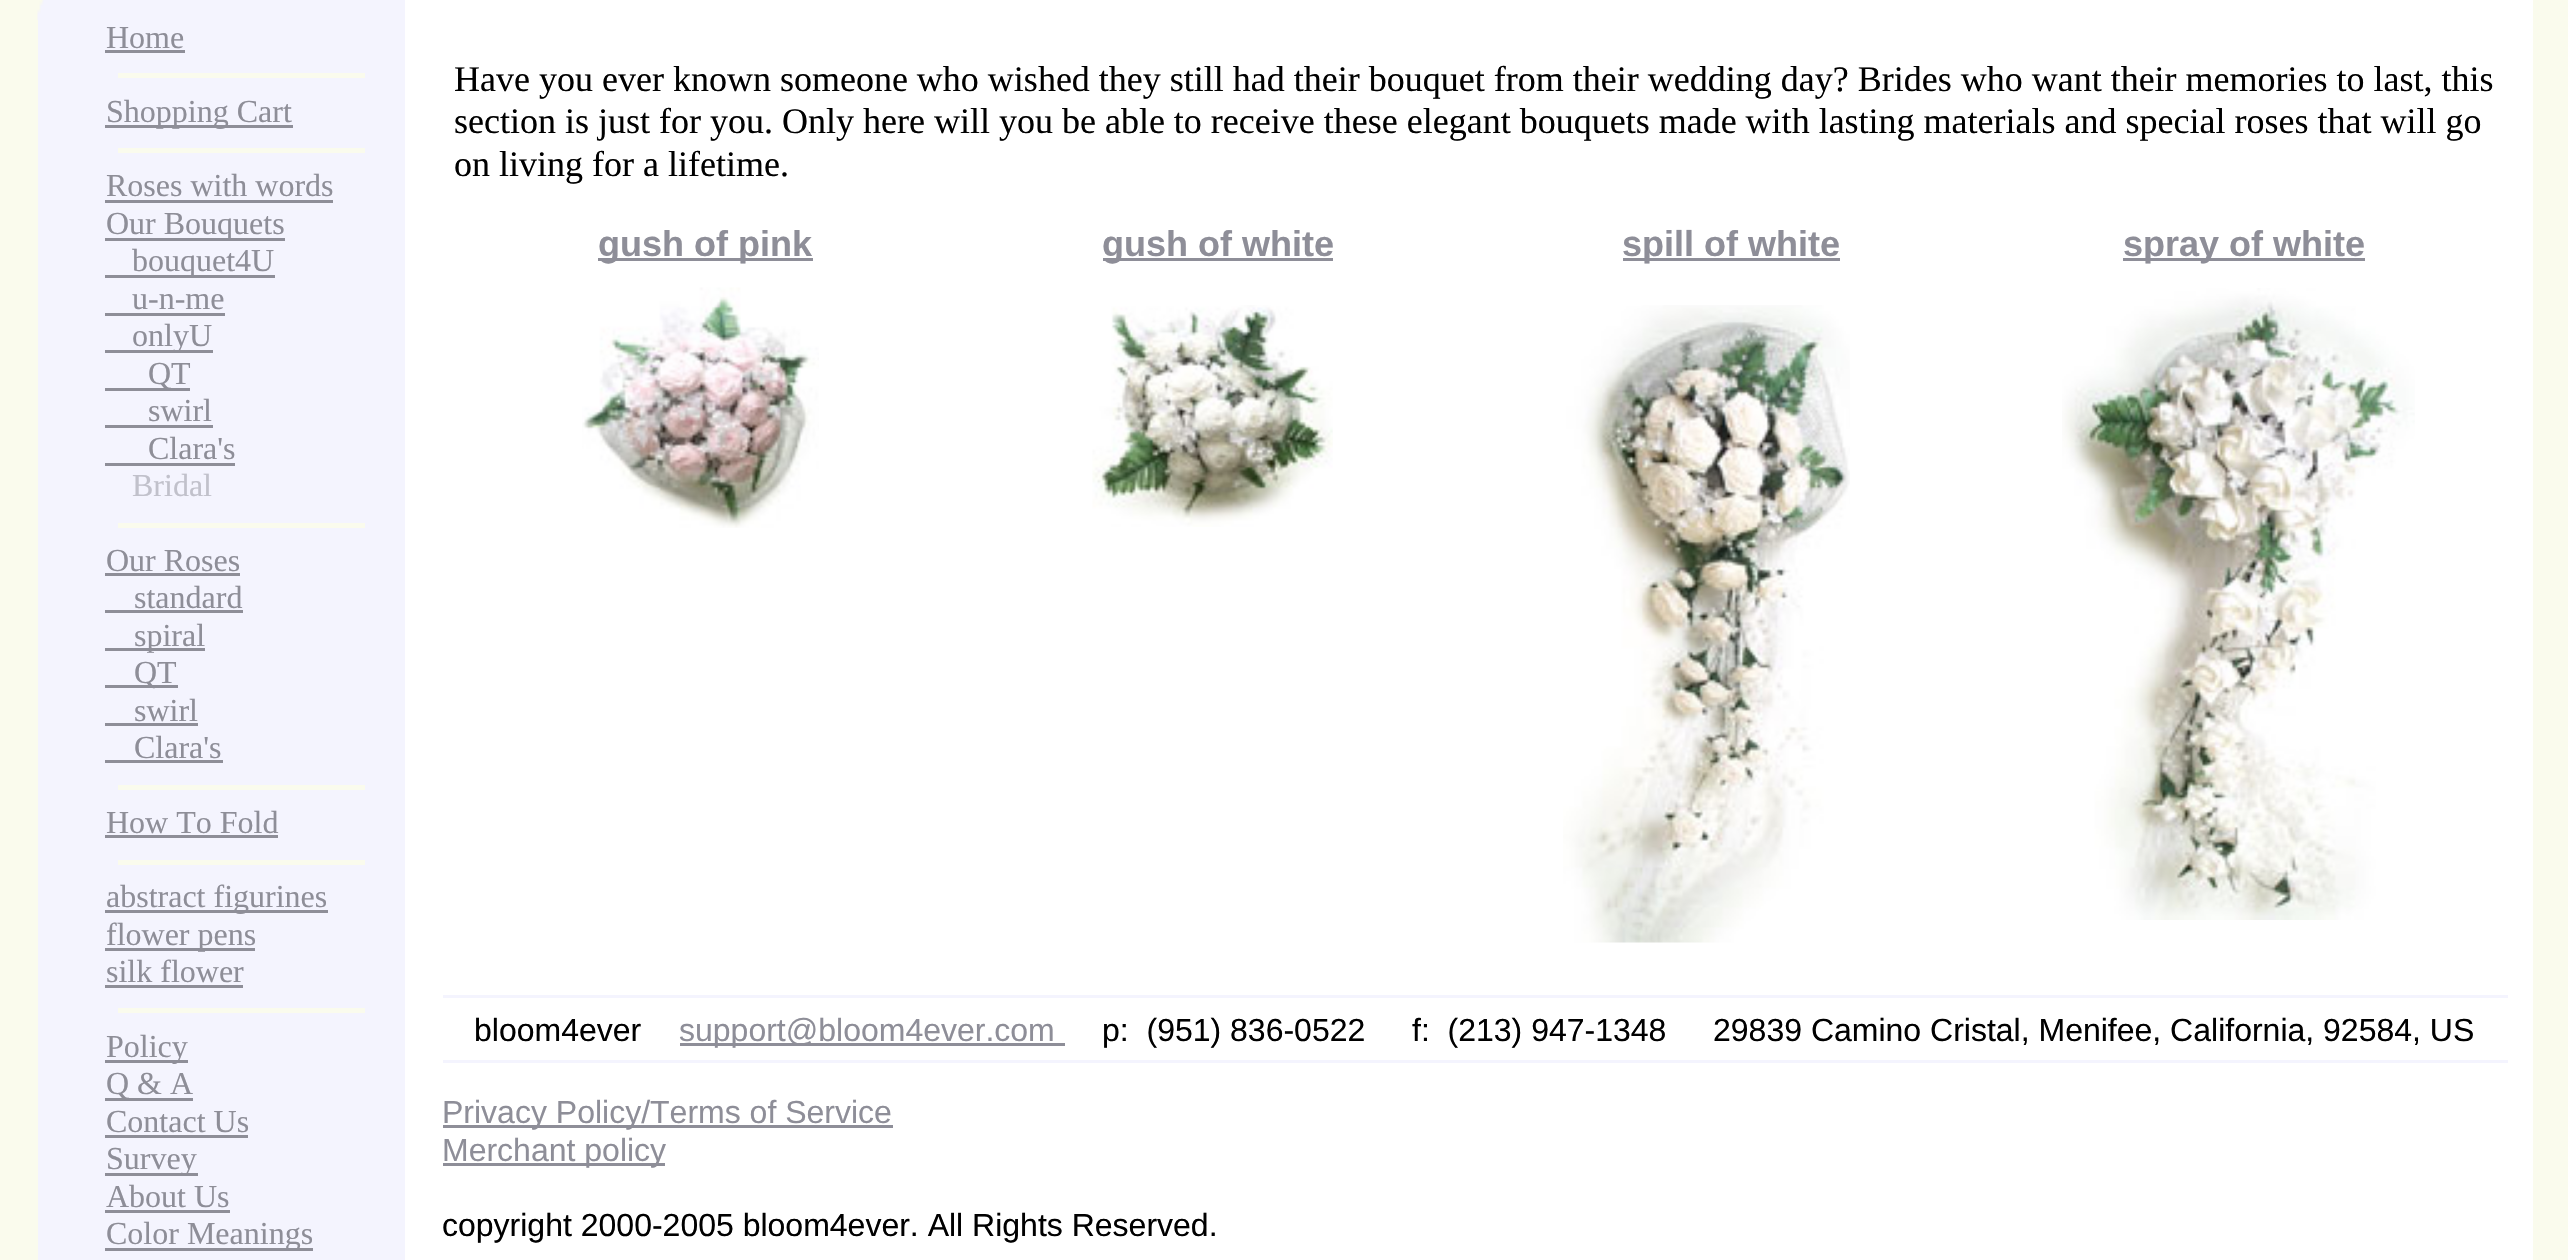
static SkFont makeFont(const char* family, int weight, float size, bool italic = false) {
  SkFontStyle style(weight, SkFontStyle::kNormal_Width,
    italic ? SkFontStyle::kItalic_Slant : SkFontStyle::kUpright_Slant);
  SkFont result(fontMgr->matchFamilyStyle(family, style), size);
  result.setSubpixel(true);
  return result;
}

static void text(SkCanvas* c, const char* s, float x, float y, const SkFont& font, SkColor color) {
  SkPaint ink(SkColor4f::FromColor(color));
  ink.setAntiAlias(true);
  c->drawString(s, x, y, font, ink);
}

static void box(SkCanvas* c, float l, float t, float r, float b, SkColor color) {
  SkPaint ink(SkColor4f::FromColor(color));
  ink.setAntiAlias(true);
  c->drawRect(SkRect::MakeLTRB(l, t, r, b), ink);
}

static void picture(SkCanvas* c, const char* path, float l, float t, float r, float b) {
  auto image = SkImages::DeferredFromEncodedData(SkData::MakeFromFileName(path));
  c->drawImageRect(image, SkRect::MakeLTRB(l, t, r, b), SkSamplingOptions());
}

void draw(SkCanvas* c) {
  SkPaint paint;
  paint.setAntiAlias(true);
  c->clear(0xfffafbed);
  box(c, 38, 0, 405, 1260, 0xfff4f4fe);
  picture(c, "img_01.png", 37, 0, 44, 20);
  SkFont face1 = makeFont("Liberation Serif", 400, 32);
  text(c, "Home", 106, 48, face1, 0xff8e8e98);
  box(c, 105, 50, 185, 53, 0xff8e8e98);
  box(c, 118, 73, 365, 78, 0xfffafbed);
  box(c, 105, 125, 293, 128, 0xff8e8e98);
  text(c, "Shopping Cart", 106, 122, face1, 0xff8e8e98);
  box(c, 118, 148, 365, 153, 0xfffafbed);
  text(c, "Roses with words", 106, 196, face1, 0xff8e8e98);
  box(c, 105, 200, 333, 203, 0xff8e8e98);
  box(c, 105, 238, 285, 241, 0xff8e8e98);
  text(c, "Our Bouquets", 106, 234, face1, 0xff8e8e98);
  box(c, 105, 275, 275, 278, 0xff8e8e98);
  text(c, "bouquet4U", 132, 271, face1, 0xff8e8e98);
  text(c, "u-n-me", 132, 309, face1, 0xff8e8e98);
  box(c, 105, 313, 225, 316, 0xff8e8e98);
  box(c, 105, 350, 213, 353, 0xff8e8e98);
  text(c, "onlyU", 132, 346, face1, 0xff8e8e98);
  box(c, 105, 388, 190, 391, 0xff8e8e98);
  text(c, "QT", 148, 384, face1, 0xff8e8e98);
  text(c, "swirl", 148, 421, face1, 0xff8e8e98);
  box(c, 105, 425, 213, 428, 0xff8e8e98);
  text(c, "Clara's", 148, 459, face1, 0xff8e8e98);
  box(c, 105, 463, 235, 466, 0xff8e8e98);
  text(c, "Bridal", 132, 496, face1, 0xffc1c1cb);
  box(c, 118, 523, 365, 528, 0xfffafbed);
  text(c, "Our Roses", 106, 571, face1, 0xff8e8e98);
  box(c, 105, 573, 240, 576, 0xff8e8e98);
  text(c, "standard", 134, 608, face1, 0xff8e8e98);
  box(c, 105, 610, 243, 613, 0xff8e8e98);
  box(c, 105, 648, 205, 651, 0xff8e8e98);
  text(c, "spiral", 134, 646, face1, 0xff8e8e98);
  box(c, 105, 685, 178, 688, 0xff8e8e98);
  text(c, "QT", 134, 683, face1, 0xff8e8e98);
  text(c, "swirl", 134, 721, face1, 0xff8e8e98);
  box(c, 105, 723, 198, 726, 0xff8e8e98);
  text(c, "Clara's", 134, 758, face1, 0xff8e8e98);
  box(c, 105, 760, 223, 763, 0xff8e8e98);
  box(c, 118, 785, 365, 790, 0xfffafbed);
  text(c, "How To Fold", 106, 833, face1, 0xff8e8e98);
  box(c, 105, 835, 278, 838, 0xff8e8e98);
  box(c, 118, 860, 365, 865, 0xfffafbed);
  box(c, 105, 910, 328, 913, 0xff8e8e98);
  text(c, "abstract figurines", 106, 907, face1, 0xff8e8e98);
  box(c, 105, 948, 255, 951, 0xff8e8e98);
  text(c, "flower pens", 106, 945, face1, 0xff8e8e98);
  text(c, "silk flower", 106, 982, face1, 0xff8e8e98);
  box(c, 105, 985, 243, 988, 0xff8e8e98);
  box(c, 118, 1008, 365, 1013, 0xfffafbed);
  box(c, 105, 1060, 188, 1063, 0xff8e8e98);
  text(c, "Policy", 106, 1057, face1, 0xff8e8e98);
  box(c, 105, 1098, 193, 1101, 0xff8e8e98);
  text(c, "Q & A", 106, 1094, face1, 0xff8e8e98);
  text(c, "Contact Us", 106, 1132, face1, 0xff8e8e98);
  box(c, 105, 1135, 248, 1138, 0xff8e8e98);
  box(c, 105, 1173, 198, 1176, 0xff8e8e98);
  text(c, "Survey", 106, 1169, face1, 0xff8e8e98);
  text(c, "About Us", 106, 1207, face1, 0xff8e8e98);
  box(c, 105, 1210, 230, 1213, 0xff8e8e98);
  box(c, 105, 1248, 313, 1251, 0xff8e8e98);
  text(c, "Color Meanings", 106, 1244, face1, 0xff8e8e98);
  box(c, 405, 0, 2533, 1260, 0xffffffff);
  SkFont face2 = makeFont("Liberation Serif", 400, 36);
  text(c, "Have you ever known someone who wished they still had their bouquet from their wedding day? Brides who want their memories to last, this", 454, 91, face2, 0xff000000);
  text(c, "section is just for you. Only here will you be able to receive these elegant bouquets made with lasting materials and special roses that will go", 454, 133, face2, 0xff000000);
  text(c, "on living for a lifetime.", 454, 176, face2, 0xff000000);
  box(c, 598, 258, 813, 261, 0xff8e8e98);
  SkFont face3 = makeFont("Liberation Sans", 700, 36);
  text(c, "gush of pink", 598, 256, face3, 0xff8e8e98);
  box(c, 1103, 258, 1333, 261, 0xff8e8e98);
  text(c, "gush of white", 1102, 256, face3, 0xff8e8e98);
  box(c, 1623, 258, 1840, 261, 0xff8e8e98);
  text(c, "spill of white", 1622, 256, face3, 0xff8e8e98);
  box(c, 2123, 258, 2365, 261, 0xff8e8e98);
  text(c, "spray of white", 2123, 256, face3, 0xff8e8e98);
  picture(c, "img_02.png", 582, 287, 819, 528);
  picture(c, "img_03.png", 1092, 305, 1333, 527);
  picture(c, "img_04.png", 1563, 305, 1850, 943);
  picture(c, "img_05.png", 2062, 288, 2415, 920);
  box(c, 443, 995, 2508, 998, 0xfff4f4fe);
  SkFont face4 = makeFont("Liberation Sans", 400, 32);
  text(c, "bloom4ever", 474, 1041, face4, 0xff000000);
  box(c, 680, 1043, 1065, 1046, 0xff8e8e98);
  text(c, "support@bloom4ever.com", 679, 1041, face4, 0xff8e8e98);
  text(c, "p:  (951) 836-0522", 1102, 1041, face4, 0xff000000);
  text(c, "f:  (213) 947-1348", 1412, 1041, face4, 0xff000000);
  text(c, "29839 Camino Cristal, Menifee, California, 92584, US", 1713, 1041, face4, 0xff000000);
  box(c, 443, 1060, 2508, 1063, 0xfff4f4fe);
  box(c, 443, 1125, 893, 1128, 0xff8e8e98);
  text(c, "Privacy Policy/Terms of Service", 442, 1123, face4, 0xff8e8e98);
  box(c, 443, 1163, 665, 1166, 0xff8e8e98);
  text(c, "Merchant policy", 442, 1161, face4, 0xff8e8e98);
  text(c, "copyright 2000-2005 bloom4ever. All Rights Reserved.", 442, 1236, face4, 0xff000000);
}
